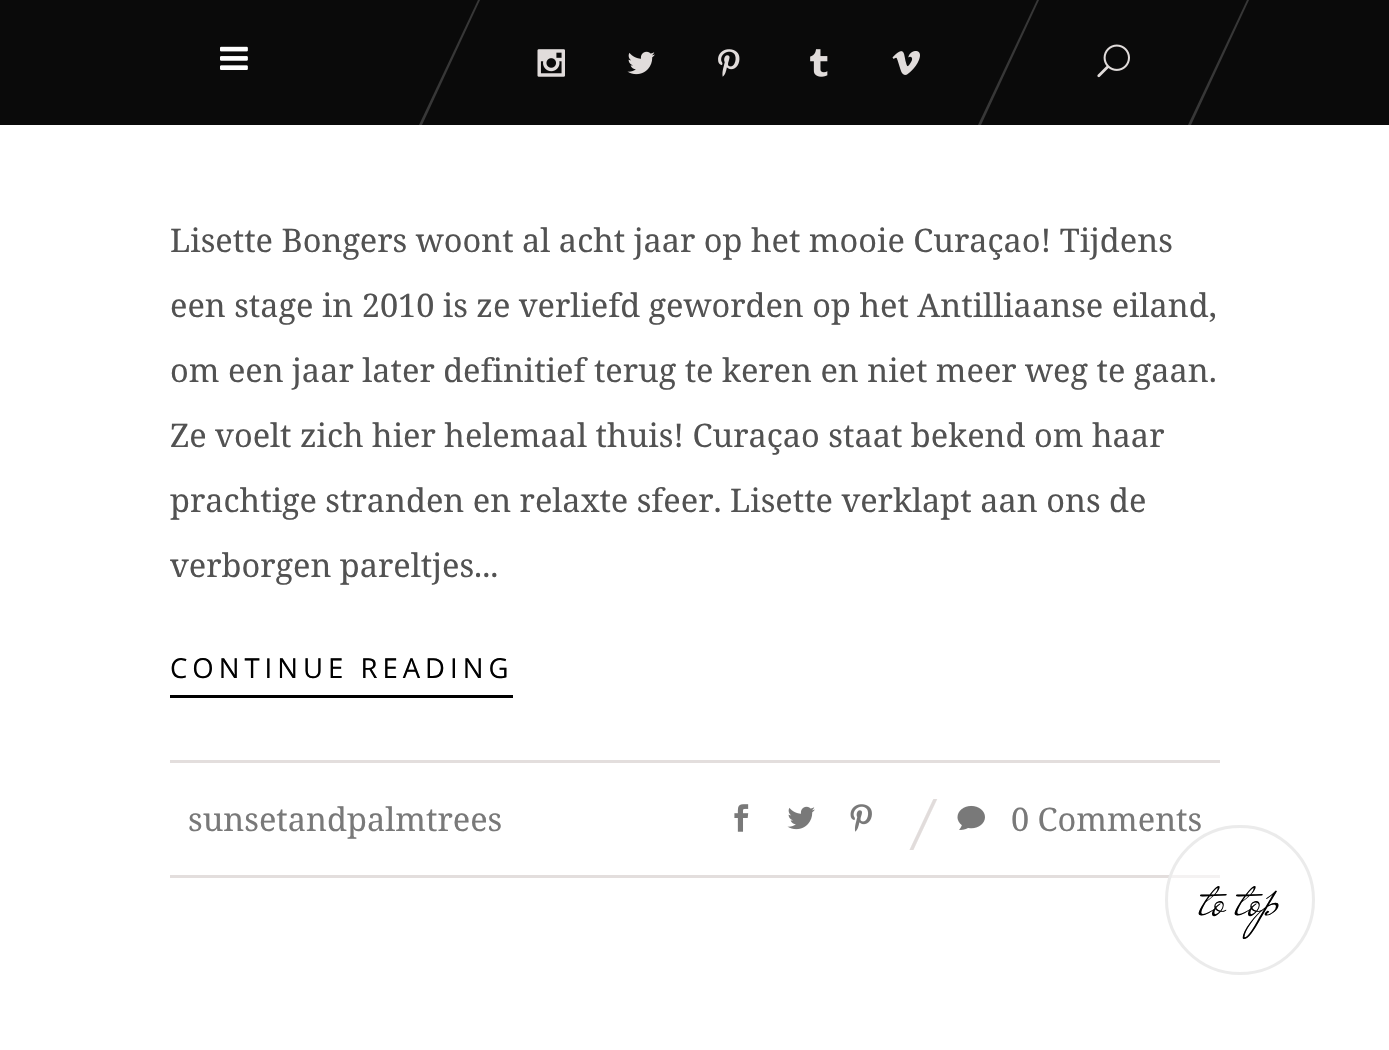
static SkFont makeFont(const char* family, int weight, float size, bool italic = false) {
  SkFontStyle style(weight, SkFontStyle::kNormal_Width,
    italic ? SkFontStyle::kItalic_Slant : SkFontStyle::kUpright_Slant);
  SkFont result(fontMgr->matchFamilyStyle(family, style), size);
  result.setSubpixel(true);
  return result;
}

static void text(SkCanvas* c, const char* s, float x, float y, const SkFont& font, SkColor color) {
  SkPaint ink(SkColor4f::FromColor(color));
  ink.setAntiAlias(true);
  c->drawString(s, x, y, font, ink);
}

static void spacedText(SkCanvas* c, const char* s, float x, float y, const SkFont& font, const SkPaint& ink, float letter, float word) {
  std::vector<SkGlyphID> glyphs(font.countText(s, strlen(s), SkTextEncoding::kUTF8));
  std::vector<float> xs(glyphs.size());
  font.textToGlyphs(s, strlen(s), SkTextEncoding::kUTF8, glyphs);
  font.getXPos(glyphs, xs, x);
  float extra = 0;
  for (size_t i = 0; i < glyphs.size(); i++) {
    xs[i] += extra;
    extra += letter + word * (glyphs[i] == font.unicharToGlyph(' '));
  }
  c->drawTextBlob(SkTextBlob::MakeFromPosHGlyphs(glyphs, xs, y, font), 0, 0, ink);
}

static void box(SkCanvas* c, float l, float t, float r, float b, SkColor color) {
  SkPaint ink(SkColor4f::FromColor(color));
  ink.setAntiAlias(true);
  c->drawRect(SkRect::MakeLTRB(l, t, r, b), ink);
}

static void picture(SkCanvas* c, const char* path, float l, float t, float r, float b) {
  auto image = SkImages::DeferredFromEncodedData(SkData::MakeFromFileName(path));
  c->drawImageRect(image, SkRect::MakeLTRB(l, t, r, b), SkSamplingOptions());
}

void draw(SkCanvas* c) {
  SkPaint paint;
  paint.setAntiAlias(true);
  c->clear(0xffffffff);
  box(c, 0, 0, 1389, 125, 0xff0a0a0a);
  picture(c, "img_01.png", 220, 46, 248, 70);
  paint.setColor(0xff373737);
  c->drawPath(SkPathBuilder().moveTo(1037, 0).lineTo(1039, 0).lineTo(981, 125).lineTo(978, 125).close().detach(), paint);
  c->drawPath(SkPathBuilder().moveTo(478, 0).lineTo(480, 0).lineTo(422, 125).lineTo(419, 125).close().detach(), paint);
  picture(c, "img_02.png", 537, 49, 565, 77);
  picture(c, "img_03.png", 627, 51, 655, 75);
  picture(c, "img_04.png", 718, 49, 740, 77);
  picture(c, "img_05.png", 810, 49, 828, 77);
  picture(c, "img_06.png", 892, 51, 920, 75);
  c->drawPath(SkPathBuilder().moveTo(1247, 0).lineTo(1249, 0).lineTo(1191, 125).lineTo(1188, 125).close().detach(), paint);
  picture(c, "img_07.png", 1097, 44, 1130, 78);
  SkFont face1 = makeFont("Noto Serif", 400, 32.5f);
  text(c, "Lisette Bongers woont al acht jaar op het mooie Curaçao! Tijdens", 170, 252, face1, 0xff525252);
  text(c, "een stage in 2010 is ze verliefd geworden op het Antilliaanse eiland,", 170, 317, face1, 0xff525252);
  text(c, "om een jaar later definitief terug te keren en niet meer weg te gaan.", 170, 382, face1, 0xff525252);
  text(c, "Ze voelt zich hier helemaal thuis! Curaçao staat bekend om haar", 170, 447, face1, 0xff525252);
  text(c, "prachtige stranden en relaxte sfeer. Lisette verklapt aan ons de", 170, 512, face1, 0xff525252);
  text(c, "verborgen pareltjes...", 170, 577, face1, 0xff525252);
  SkFont face2 = makeFont("Open Sans", 400, 27.5f);
  paint.setColor(0xff000000);
  spacedText(c, "CONTINUE READING", 170, 678, face2, paint, 5, 0);
  box(c, 170, 695, 513, 698, 0xff000000);
  box(c, 170, 760, 1220, 763, 0xffe3dedd);
  box(c, 170, 875, 1220, 878, 0xffe3dedd);
  text(c, "sunsetandpalmtrees", 188, 831, face1, 0xff797979);
  picture(c, "img_08.png", 734, 804, 749, 832);
  picture(c, "img_09.png", 787, 806, 815, 830);
  picture(c, "img_10.png", 850, 804, 872, 832);
  SkFont face3 = makeFont("Noto Serif", 400, 58, true);
  text(c, "/", 915, 843, face3, 0xffe1dcdb);
  picture(c, "img_11.png", 957, 805, 985, 830);
  text(c, "0 Comments", 1011, 831, face1, 0xff797979);
  paint.setColor(0x99ffffff);
  c->drawCircle(1240, 900, 73.5f, paint);
  paint.setStyle(SkPaint::kStroke_Style);
  paint.setStrokeWidth(3);
  paint.setColor(0xffebebeb);
  c->drawCircle(1240, 900, 73.5f, paint);
  SkFont face4 = makeFont("Mr De Haviland", 400, 62);
  text(c, "to top", 1200, 915, face4, 0xff000000);
}
